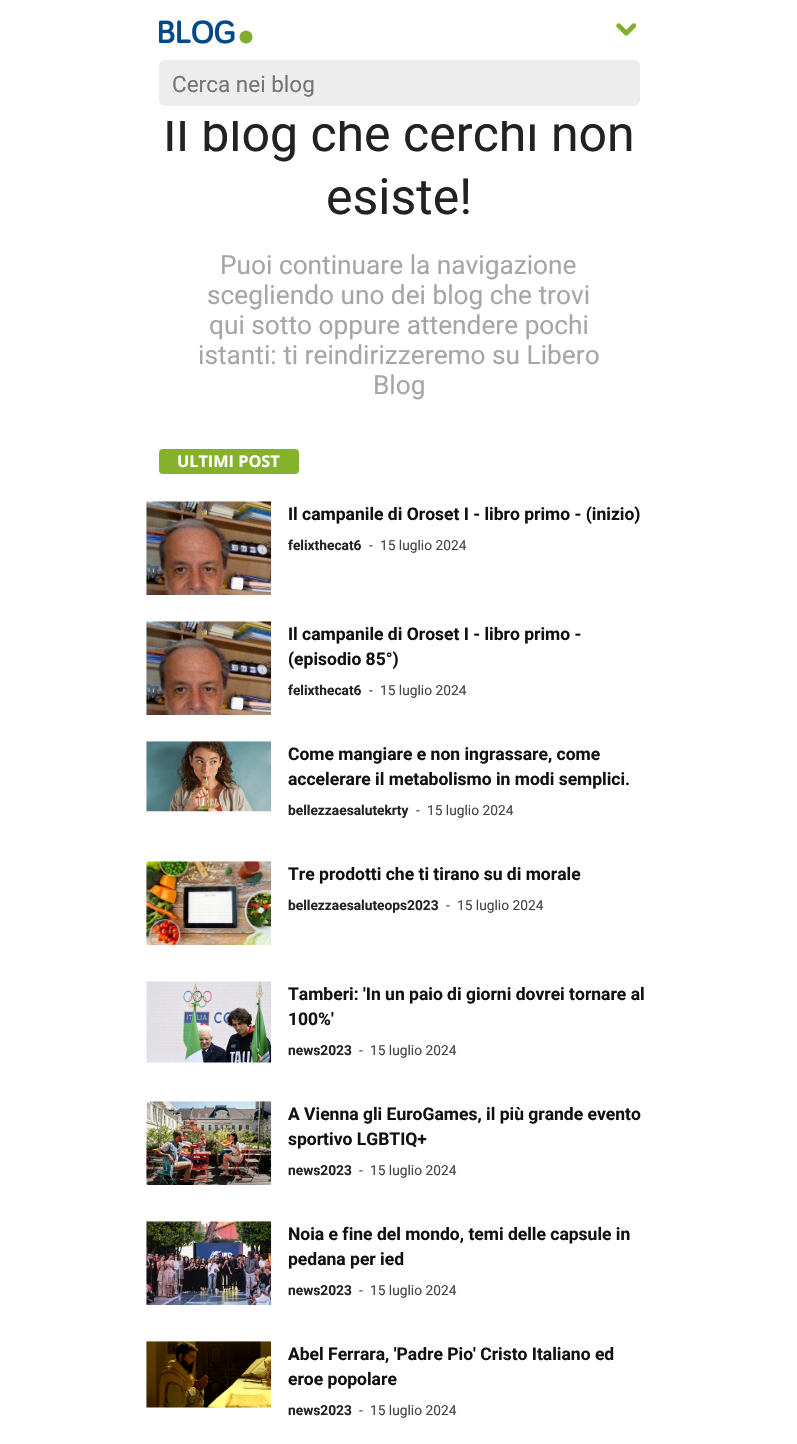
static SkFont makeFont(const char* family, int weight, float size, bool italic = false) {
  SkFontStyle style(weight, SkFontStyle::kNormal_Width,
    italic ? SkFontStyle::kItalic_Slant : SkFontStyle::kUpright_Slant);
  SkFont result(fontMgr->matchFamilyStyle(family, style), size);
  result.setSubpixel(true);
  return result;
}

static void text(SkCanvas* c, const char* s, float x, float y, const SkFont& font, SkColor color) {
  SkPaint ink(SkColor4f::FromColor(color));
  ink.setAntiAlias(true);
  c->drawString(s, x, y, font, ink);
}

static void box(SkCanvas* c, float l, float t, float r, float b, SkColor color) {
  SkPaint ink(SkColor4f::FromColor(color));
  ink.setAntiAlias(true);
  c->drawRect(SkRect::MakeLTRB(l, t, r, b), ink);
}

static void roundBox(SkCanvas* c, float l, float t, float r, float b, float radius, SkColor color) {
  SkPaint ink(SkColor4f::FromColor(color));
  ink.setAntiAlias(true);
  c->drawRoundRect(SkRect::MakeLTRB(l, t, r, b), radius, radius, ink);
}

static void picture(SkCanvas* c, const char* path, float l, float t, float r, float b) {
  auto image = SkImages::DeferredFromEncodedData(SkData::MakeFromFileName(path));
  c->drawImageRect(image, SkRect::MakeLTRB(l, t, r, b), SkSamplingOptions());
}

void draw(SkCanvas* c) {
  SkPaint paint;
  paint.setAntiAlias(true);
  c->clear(0xffffffff);
  SkFont face1 = makeFont("Roboto", 400, 50);
  text(c, "Il blog che cerchi non", 163, 151, face1, 0xff222222);
  box(c, 167, 113, 536, 121, 0xffffffff);
  picture(c, "img_01.png", 159, 20, 253, 44);
  picture(c, "img_02.png", 616, 23, 636, 36);
  roundBox(c, 159, 60, 640, 106, 6, 0xffededed);
  SkFont face2 = makeFont("Roboto", 400, 22.5f);
  text(c, "Cerca nei blog", 172, 92, face2, 0xff757575);
  text(c, "esiste!", 326, 214, face1, 0xff222222);
  SkFont face3 = makeFont("Roboto", 400, 26.25f);
  text(c, "Puoi continuare la navigazione", 220, 274, face3, 0xffa6a6a6);
  text(c, "scegliendo uno dei blog che trovi", 207, 304, face3, 0xffa6a6a6);
  text(c, "qui sotto oppure attendere pochi", 209, 334, face3, 0xffa6a6a6);
  text(c, "istanti: ti reindirizzeremo su Libero", 198, 364, face3, 0xffa6a6a6);
  text(c, "Blog", 373, 394, face3, 0xffa6a6a6);
  roundBox(c, 159, 449, 299, 474, 4, 0xff86b12c);
  SkFont face4 = makeFont("Open Sans", 700, 16.25f);
  text(c, "ULTIMI POST", 177, 467, face4, 0xffffffff);
  picture(c, "img_03.png", 146, 501, 272, 595);
  SkFont face5 = makeFont("Roboto", 700, 17.5f);
  text(c, "Il campanile di Oroset I - libro primo - (inizio)", 288, 520, face5, 0xff111111);
  SkFont face6 = makeFont("Roboto", 700, 13.75f);
  text(c, "felixthecat6", 288, 550, face6, 0xff222222);
  SkFont face7 = makeFont("Roboto", 400, 13.75f);
  text(c, "-", 369, 550, face7, 0xff444444);
  text(c, "15 luglio 2024", 380, 550, face7, 0xff444444);
  picture(c, "img_04.png", 146, 621, 272, 715);
  text(c, "Il campanile di Oroset I - libro primo -", 288, 640, face5, 0xff111111);
  text(c, "(episodio 85°)", 288, 665, face5, 0xff111111);
  text(c, "felixthecat6", 288, 695, face6, 0xff222222);
  text(c, "-", 369, 695, face7, 0xff444444);
  text(c, "15 luglio 2024", 380, 695, face7, 0xff444444);
  picture(c, "img_05.png", 146, 741, 272, 812);
  text(c, "Come mangiare e non ingrassare, come", 288, 760, face5, 0xff111111);
  text(c, "accelerare il metabolismo in modi semplici.", 288, 785, face5, 0xff111111);
  text(c, "bellezzaesalutekrty", 288, 815, face6, 0xff222222);
  text(c, "-", 416, 815, face7, 0xff444444);
  text(c, "15 luglio 2024", 427, 815, face7, 0xff444444);
  picture(c, "img_06.png", 146, 861, 272, 945);
  text(c, "Tre prodotti che ti tirano su di morale", 288, 880, face5, 0xff111111);
  text(c, "bellezzaesaluteops2023", 288, 910, face6, 0xff222222);
  text(c, "-", 446, 910, face7, 0xff444444);
  text(c, "15 luglio 2024", 457, 910, face7, 0xff444444);
  picture(c, "img_07.png", 146, 981, 272, 1063);
  text(c, "Tamberi: 'In un paio di giorni dovrei tornare al", 288, 1000, face5, 0xff111111);
  text(c, "100%'", 288, 1025, face5, 0xff111111);
  text(c, "news2023", 288, 1055, face6, 0xff222222);
  text(c, "-", 359, 1055, face7, 0xff444444);
  text(c, "15 luglio 2024", 370, 1055, face7, 0xff444444);
  picture(c, "img_08.png", 146, 1101, 272, 1185);
  text(c, "A Vienna gli EuroGames, il più grande evento", 288, 1120, face5, 0xff111111);
  text(c, "sportivo LGBTIQ+", 288, 1145, face5, 0xff111111);
  text(c, "news2023", 288, 1175, face6, 0xff222222);
  text(c, "-", 359, 1175, face7, 0xff444444);
  text(c, "15 luglio 2024", 370, 1175, face7, 0xff444444);
  picture(c, "img_09.png", 146, 1221, 272, 1305);
  text(c, "Noia e fine del mondo, temi delle capsule in", 288, 1240, face5, 0xff111111);
  text(c, "pedana per ied", 288, 1265, face5, 0xff111111);
  text(c, "news2023", 288, 1295, face6, 0xff222222);
  text(c, "-", 359, 1295, face7, 0xff444444);
  text(c, "15 luglio 2024", 370, 1295, face7, 0xff444444);
  picture(c, "img_10.png", 146, 1341, 272, 1408);
  text(c, "Abel Ferrara, 'Padre Pio' Cristo Italiano ed", 288, 1360, face5, 0xff111111);
  text(c, "eroe popolare", 288, 1385, face5, 0xff111111);
  text(c, "news2023", 288, 1415, face6, 0xff222222);
  text(c, "-", 359, 1415, face7, 0xff444444);
  text(c, "15 luglio 2024", 370, 1415, face7, 0xff444444);
}
